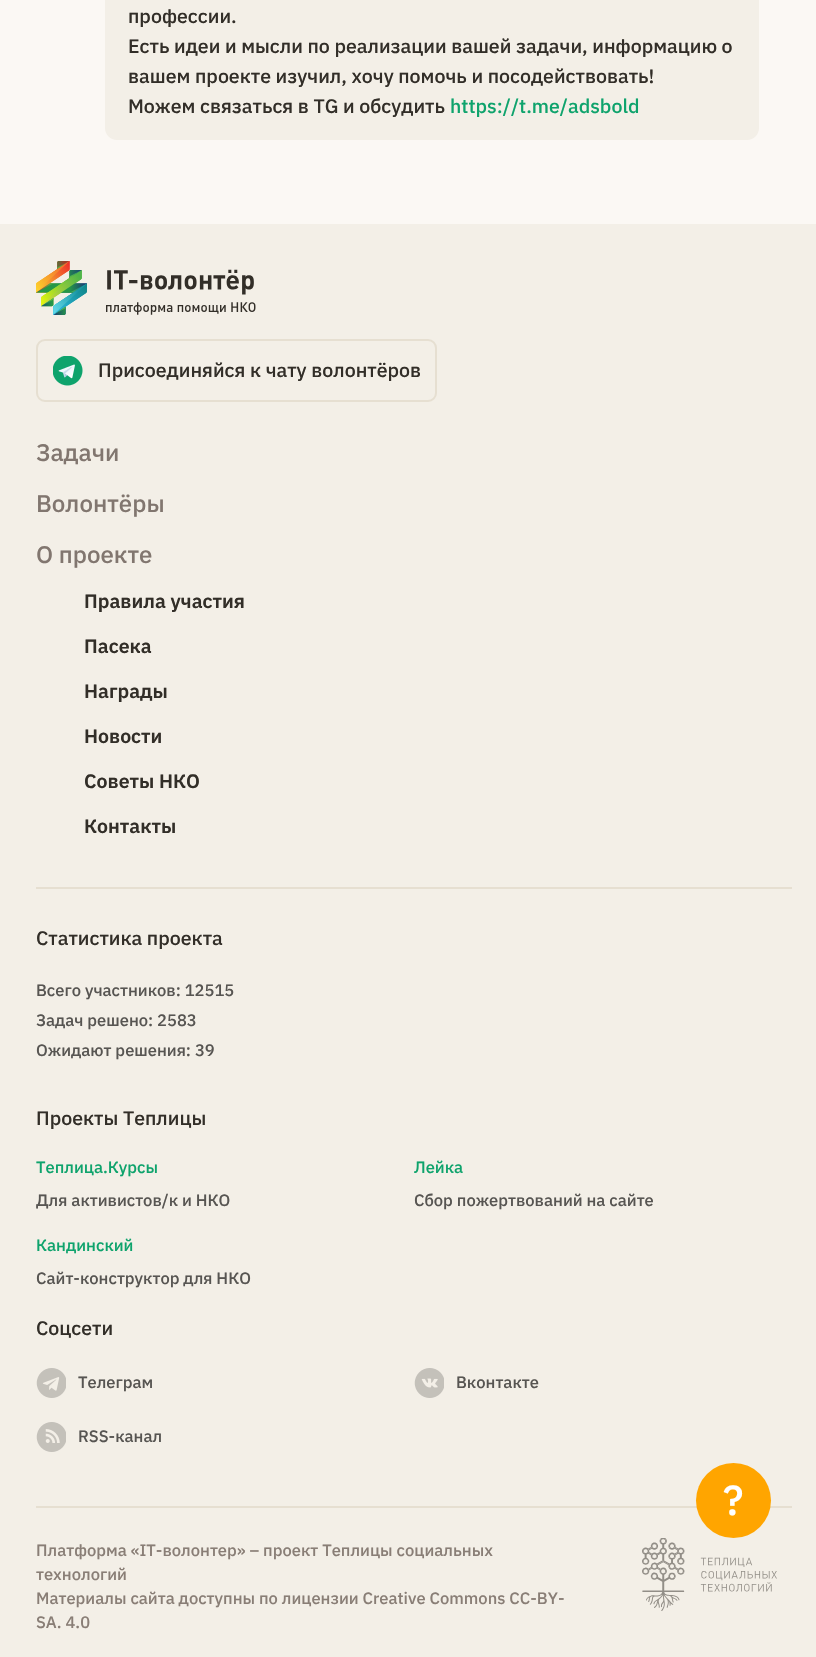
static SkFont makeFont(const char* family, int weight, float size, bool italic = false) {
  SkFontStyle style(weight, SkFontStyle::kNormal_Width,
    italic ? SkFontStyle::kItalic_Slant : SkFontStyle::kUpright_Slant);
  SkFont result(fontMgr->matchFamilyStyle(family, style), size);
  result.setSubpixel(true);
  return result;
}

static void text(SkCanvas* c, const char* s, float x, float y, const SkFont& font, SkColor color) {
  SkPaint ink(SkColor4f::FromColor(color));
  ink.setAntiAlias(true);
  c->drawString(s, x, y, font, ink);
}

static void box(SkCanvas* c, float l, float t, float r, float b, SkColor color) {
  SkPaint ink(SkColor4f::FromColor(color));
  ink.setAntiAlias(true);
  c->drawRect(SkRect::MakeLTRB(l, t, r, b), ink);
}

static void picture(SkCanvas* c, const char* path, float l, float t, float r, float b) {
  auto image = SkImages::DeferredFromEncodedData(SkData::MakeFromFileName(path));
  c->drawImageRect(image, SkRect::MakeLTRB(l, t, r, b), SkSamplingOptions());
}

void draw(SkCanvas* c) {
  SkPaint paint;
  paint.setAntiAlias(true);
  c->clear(0xfffbf8f4);
  paint.setColor(0xfff3efe7);
  c->drawPath(SkPathBuilder().moveTo(105, -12).lineTo(747, -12).cubicTo(753.5f, -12, 759, -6.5f, 759, 0).lineTo(759, 128).cubicTo(759, 134.5f, 753.5f, 140, 747, 140).lineTo(117, 140).cubicTo(110.5f, 140, 105, 134.5f, 105, 128).close().detach(), paint);
  SkFont face1 = makeFont("IBM Plex Sans", 500, 19.5f);
  text(c, "профессии.", 128, 23, face1, 0xff322e28);
  text(c, "Есть идеи и мысли по реализации вашей задачи, информацию о", 128, 53, face1, 0xff322e28);
  text(c, "вашем проекте изучил, хочу помочь и посодействовать!", 128, 83, face1, 0xff322e28);
  text(c, "Можем связаться в TG и обсудить", 128, 113, face1, 0xff322e28);
  text(c, "https://t.me/adsbold", 450, 113, face1, 0xff0ea36c);
  box(c, 0, 224, 816, 1657, 0xfff3efe7);
  box(c, 36, 1506, 792, 1508, 0xffe6dfd1);
  paint.setColor(0xffffa500);
  c->drawCircle(733.5f, 1500.5f, 37.5f, paint);
  SkFont face2 = makeFont("IBM Plex Sans", 500, 42);
  text(c, "?", 723, 1515, face2, 0xffffffff);
  box(c, 36, 887, 792, 889, 0xffe6dfd1);
  picture(c, "img_01.png", 36, 261, 256, 315);
  picture(c, "img_02.png", 53, 356, 83, 386);
  paint.setStyle(SkPaint::kStroke_Style);
  paint.setStrokeWidth(2);
  paint.setColor(0xffe6dfd1);
  c->drawRoundRect(SkRect::MakeLTRB(37, 340, 436, 401), 8, 8, paint);
  text(c, "Присоединяйся к чату волонтёров", 98, 377, face1, 0xff322e28);
  SkFont face3 = makeFont("IBM Plex Sans", 500, 24);
  text(c, "Задачи", 36, 461, face3, 0xff81766f);
  text(c, "Волонтёры", 36, 512, face3, 0xff81766f);
  text(c, "О проекте", 36, 563, face3, 0xff81766f);
  SkFont face4 = makeFont("IBM Plex Sans", 600, 19.5f);
  text(c, "Правила участия", 84, 608, face4, 0xff322e28);
  text(c, "Пасека", 84, 653, face4, 0xff322e28);
  text(c, "Награды", 84, 698, face4, 0xff322e28);
  text(c, "Новости", 84, 743, face4, 0xff322e28);
  text(c, "Советы НКО", 84, 788, face4, 0xff322e28);
  text(c, "Контакты", 84, 833, face4, 0xff322e28);
  text(c, "Статистика проекта", 36, 945, face1, 0xff322e28);
  SkFont face5 = makeFont("IBM Plex Sans", 500, 16.5f);
  text(c, "Всего участников: 12515", 36, 996, face5, 0xff575552);
  text(c, "Задач решено: 2583", 36, 1026, face5, 0xff575552);
  text(c, "Ожидают решения: 39", 36, 1056, face5, 0xff575552);
  text(c, "Проекты Теплицы", 36, 1125, face1, 0xff322e28);
  text(c, "Теплица.Курсы", 36, 1173, face5, 0xff0ea36c);
  text(c, "Для активистов/к и НКО", 36, 1206, face5, 0xff575552);
  text(c, "Лейка", 414, 1173, face5, 0xff0ea36c);
  text(c, "Сбор пожертвований на сайте", 414, 1206, face5, 0xff575552);
  text(c, "Кандинский", 36, 1251, face5, 0xff0ea36c);
  text(c, "Сайт-конструктор для НКО", 36, 1284, face5, 0xff575552);
  text(c, "Соцсети", 36, 1335, face1, 0xff322e28);
  picture(c, "img_03.png", 36, 1368, 66, 1398);
  text(c, "Телеграм", 78, 1388, face5, 0xff575552);
  picture(c, "img_04.png", 414, 1368, 444, 1398);
  text(c, "Вконтакте", 456, 1388, face5, 0xff575552);
  picture(c, "img_05.png", 36, 1422, 66, 1452);
  text(c, "RSS-канал", 78, 1442, face5, 0xff575552);
  text(c, "Платформа «IT-волонтер» – проект Теплицы социальных", 36, 1556, face5, 0xff897e76);
  text(c, "технологий", 36, 1580, face5, 0xff897e76);
  text(c, "Материалы сайта доступны по лицензии Creative Commons СС-BY-", 36, 1604, face5, 0xff897e76);
  text(c, "SA. 4.0", 36, 1628, face5, 0xff897e76);
  picture(c, "img_06.png", 642, 1538, 777, 1611);
}
